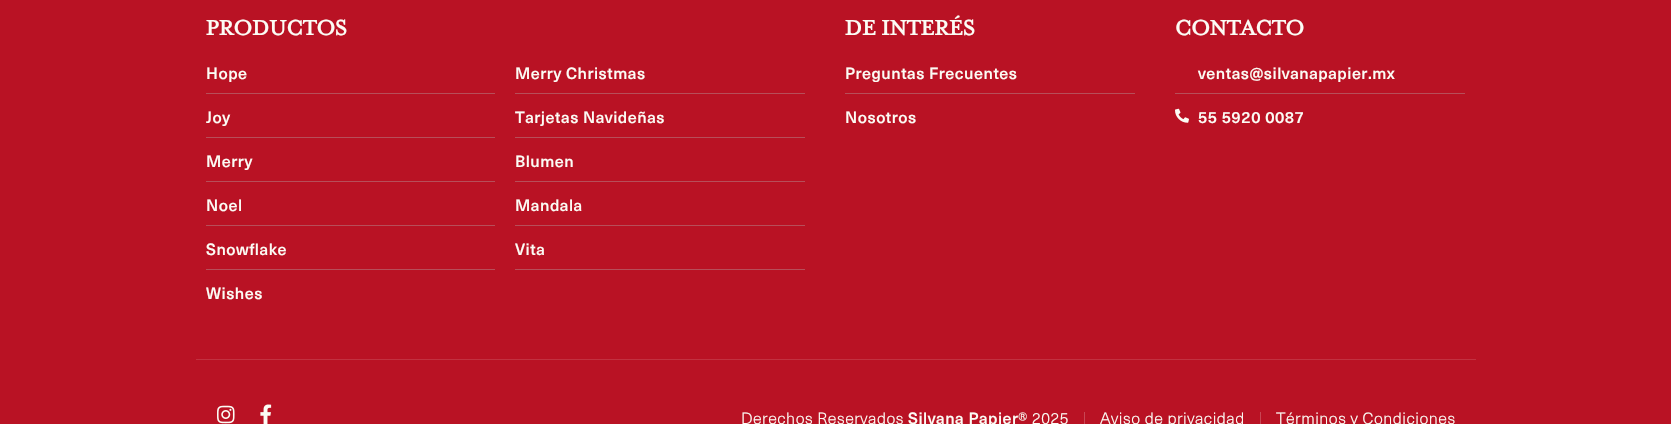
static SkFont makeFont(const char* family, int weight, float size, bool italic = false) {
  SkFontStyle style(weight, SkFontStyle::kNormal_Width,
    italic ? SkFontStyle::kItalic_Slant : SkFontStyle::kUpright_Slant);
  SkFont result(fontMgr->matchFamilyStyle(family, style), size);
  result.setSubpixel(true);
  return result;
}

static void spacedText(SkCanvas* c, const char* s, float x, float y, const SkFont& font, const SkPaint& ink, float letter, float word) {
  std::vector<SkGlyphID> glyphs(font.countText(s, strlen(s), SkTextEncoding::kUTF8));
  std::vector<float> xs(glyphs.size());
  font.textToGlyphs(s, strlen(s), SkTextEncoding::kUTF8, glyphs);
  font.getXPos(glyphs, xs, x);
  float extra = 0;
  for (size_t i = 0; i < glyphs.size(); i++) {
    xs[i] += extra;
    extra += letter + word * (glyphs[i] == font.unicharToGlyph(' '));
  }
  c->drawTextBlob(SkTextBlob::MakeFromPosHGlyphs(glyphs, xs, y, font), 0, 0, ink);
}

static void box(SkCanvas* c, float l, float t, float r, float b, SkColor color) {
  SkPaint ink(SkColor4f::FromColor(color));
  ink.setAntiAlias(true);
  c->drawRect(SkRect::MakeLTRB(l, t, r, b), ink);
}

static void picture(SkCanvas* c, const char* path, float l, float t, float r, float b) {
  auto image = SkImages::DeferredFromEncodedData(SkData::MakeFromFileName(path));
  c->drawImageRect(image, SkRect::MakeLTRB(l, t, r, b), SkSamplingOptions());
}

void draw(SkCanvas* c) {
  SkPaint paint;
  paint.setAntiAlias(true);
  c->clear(0xffb91224);
  SkFont face1 = makeFont("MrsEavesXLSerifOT", 700, 24);
  paint.setColor(0xfffcfcf5);
  spacedText(c, "PRODUCTOS", 206, 35, face1, paint, 0.5f, 0);
  SkFont face2 = makeFont("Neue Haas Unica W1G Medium", 500, 16);
  spacedText(c, "Hope", 206, 79, face2, paint, 0.5f, 0);
  box(c, 206, 93, 495, 94, 0xffb74e59);
  spacedText(c, "Joy", 206, 123, face2, paint, 0.5f, 0);
  box(c, 206, 137, 495, 138, 0xffb74e59);
  spacedText(c, "Merry", 206, 167, face2, paint, 0.5f, 0);
  box(c, 206, 181, 495, 182, 0xffb74e59);
  spacedText(c, "Noel", 206, 211, face2, paint, 0.5f, 0);
  box(c, 206, 225, 495, 226, 0xffb74e59);
  spacedText(c, "Snowflake", 206, 255, face2, paint, 0.5f, 0);
  box(c, 206, 269, 495, 270, 0xffb74e59);
  spacedText(c, "Wishes", 206, 299, face2, paint, 0.5f, 0);
  spacedText(c, "Merry Christmas", 515, 79, face2, paint, 0.5f, 0);
  box(c, 515, 93, 805, 94, 0xffb74e59);
  spacedText(c, "Tarjetas Navideñas", 515, 123, face2, paint, 0.5f, 0);
  box(c, 515, 137, 805, 138, 0xffb74e59);
  spacedText(c, "Blumen", 515, 167, face2, paint, 0.5f, 0);
  box(c, 515, 181, 805, 182, 0xffb74e59);
  spacedText(c, "Mandala", 515, 211, face2, paint, 0.5f, 0);
  box(c, 515, 225, 805, 226, 0xffb74e59);
  spacedText(c, "Vita", 515, 255, face2, paint, 0.5f, 0);
  box(c, 515, 269, 805, 270, 0xffb74e59);
  spacedText(c, "DE INTERÉS", 845, 35, face1, paint, 0.5f, 0);
  spacedText(c, "Preguntas Frecuentes", 845, 79, face2, paint, 0.5f, 0);
  box(c, 845, 93, 1135, 94, 0xffb74e59);
  spacedText(c, "Nosotros", 845, 123, face2, paint, 0.5f, 0);
  spacedText(c, "CONTACTO", 1175, 35, face1, paint, 0.5f, 0);
  spacedText(c, "ventas@silvanapapier.mx", 1198, 79, face2, paint, 0.5f, 0);
  box(c, 1175, 93, 1465, 94, 0xffb74e59);
  picture(c, "img_01.png", 1175, 108, 1189, 123);
  spacedText(c, "55 5920 0087", 1198, 123, face2, paint, 0.5f, 0);
  box(c, 196, 359, 1476, 360, 0xffc23140);
  picture(c, "img_02.png", 217, 405, 235, 424);
  picture(c, "img_03.png", 260, 404, 272, 424);
  SkFont face3 = makeFont("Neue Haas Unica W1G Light", 300, 16);
  spacedText(c, "Derechos Reservados", 741, 424, face3, paint, 0.5f, 0);
  spacedText(c, "Silvana Papier", 908, 424, face2, paint, 0.5f, 0);
  spacedText(c, "® 2025", 1018, 424, face3, paint, 0.5f, 0);
  box(c, 1084, 412, 1085, 424, 0xffc84654);
  spacedText(c, "Aviso de privacidad", 1100, 424, face3, paint, 0.5f, 0);
  box(c, 1260, 412, 1261, 424, 0xffc84654);
  spacedText(c, "Términos y Condiciones", 1276, 424, face3, paint, 0.5f, 0);
}
